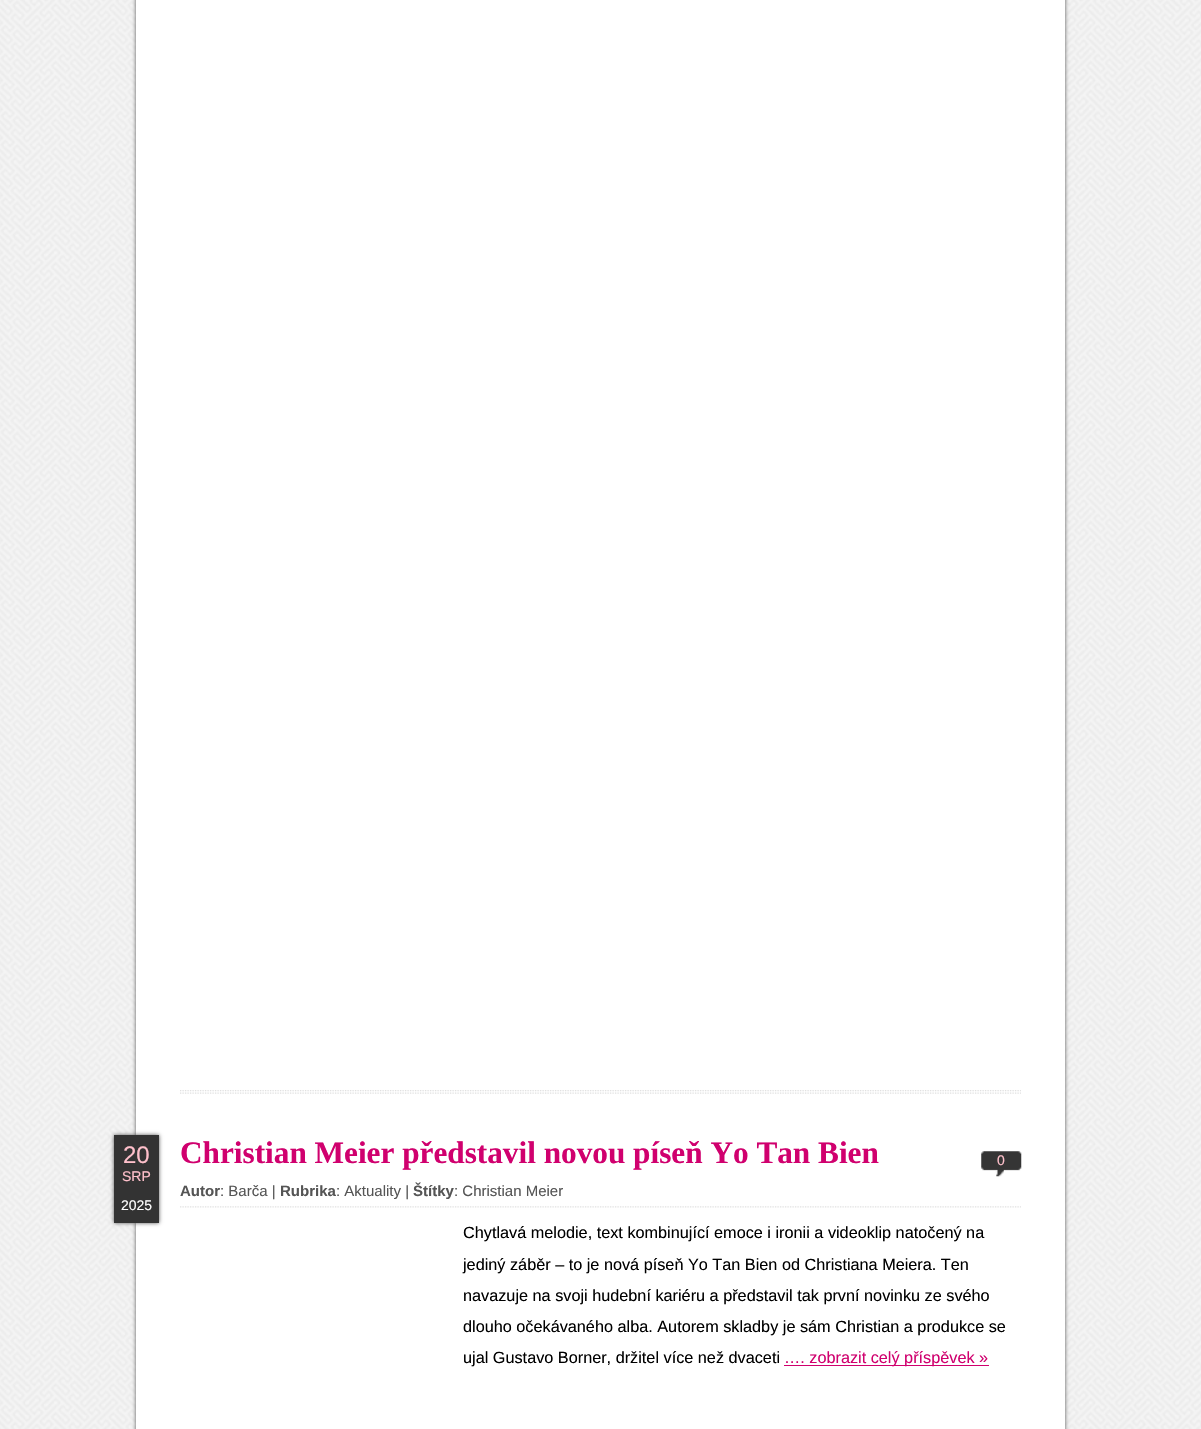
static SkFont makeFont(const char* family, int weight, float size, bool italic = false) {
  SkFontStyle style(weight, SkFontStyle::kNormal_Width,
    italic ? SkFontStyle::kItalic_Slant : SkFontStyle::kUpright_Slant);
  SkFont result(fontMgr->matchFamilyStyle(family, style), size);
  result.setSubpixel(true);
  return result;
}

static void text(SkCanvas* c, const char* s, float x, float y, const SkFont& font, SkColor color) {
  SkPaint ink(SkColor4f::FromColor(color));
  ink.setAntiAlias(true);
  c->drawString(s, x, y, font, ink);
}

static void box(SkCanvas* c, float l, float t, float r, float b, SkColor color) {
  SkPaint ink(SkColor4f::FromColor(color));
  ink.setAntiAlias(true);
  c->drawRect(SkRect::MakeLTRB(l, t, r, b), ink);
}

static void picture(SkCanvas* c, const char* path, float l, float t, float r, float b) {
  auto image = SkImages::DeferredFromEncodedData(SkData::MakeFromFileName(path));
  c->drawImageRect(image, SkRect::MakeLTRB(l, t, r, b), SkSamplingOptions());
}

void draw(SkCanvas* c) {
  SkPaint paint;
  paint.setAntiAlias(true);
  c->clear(0xffffffff);
  picture(c, "img_01.png", 0, 0, 1201, 1429);
  paint.setColor(0xff555555);
  paint.setMaskFilter(SkMaskFilter::MakeBlur(kNormal_SkBlurStyle, 2));
  c->drawRect(SkRect::MakeLTRB(136, -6, 1065, 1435), paint);
  paint.setMaskFilter(nullptr);
  box(c, 136, 0, 1065, 1429, 0xffffffff);
  picture(c, "img_02.png", 180, 1090, 1021, 1094);
  paint.setMaskFilter(SkMaskFilter::MakeBlur(kNormal_SkBlurStyle, 2));
  c->drawRect(SkRect::MakeLTRB(114, 1135, 159, 1223), paint);
  paint.setMaskFilter(nullptr);
  box(c, 114, 1135, 159, 1223, 0xff333333);
  SkFont face1 = makeFont("Liberation Sans", 400, 24);
  text(c, "20", 123, 1163, face1, 0xffffc0cb);
  SkFont face2 = makeFont("Liberation Sans", 400, 14);
  text(c, "SRP", 122, 1181, face2, 0xffffc0cb);
  text(c, "2025", 121, 1210, face2, 0xffffffff);
  SkFont face3 = makeFont("Liberation Serif", 700, 31.25f);
  text(c, "Christian Meier představil novou píseň Yo Tan Bien", 180, 1163, face3, 0xffd0006e);
  picture(c, "img_03.png", 180, 1206, 1021, 1208);
  picture(c, "img_04.png", 981, 1151, 1022, 1177);
  text(c, "0", 997, 1165, face2, 0xffffc0cb);
  SkFont face4 = makeFont("Liberation Sans", 700, 15);
  text(c, "Autor", 180, 1196, face4, 0xff555555);
  SkFont face5 = makeFont("Liberation Sans", 400, 15);
  text(c, ": Barča |", 220, 1196, face5, 0xff555555);
  text(c, "Rubrika", 280, 1196, face4, 0xff555555);
  text(c, ": Aktuality |", 336, 1196, face5, 0xff555555);
  text(c, "Štítky", 413, 1196, face4, 0xff555555);
  text(c, ": Christian Meier", 454, 1196, face5, 0xff555555);
  SkFont face6 = makeFont("Liberation Sans", 400, 16.25f);
  text(c, "Chytlavá melodie, text kombinující emoce i ironii a videoklip natočený na", 463, 1238, face6, 0xff000000);
  text(c, "jediný záběr – to je nová píseň Yo Tan Bien od Christiana Meiera. Ten", 463, 1270, face6, 0xff000000);
  text(c, "navazuje na svoji hudební kariéru a představil tak první novinku ze svého", 463, 1301, face6, 0xff000000);
  text(c, "dlouho očekávaného alba. Autorem skladby je sám Christian a produkce se", 463, 1332, face6, 0xff000000);
  text(c, "ujal Gustavo Borner, držitel více než dvaceti", 463, 1363, face6, 0xff000000);
  box(c, 784, 1365, 989, 1366, 0xffd0006e);
  text(c, "…. zobrazit celý příspěvek »", 784, 1363, face6, 0xffd0006e);
}
